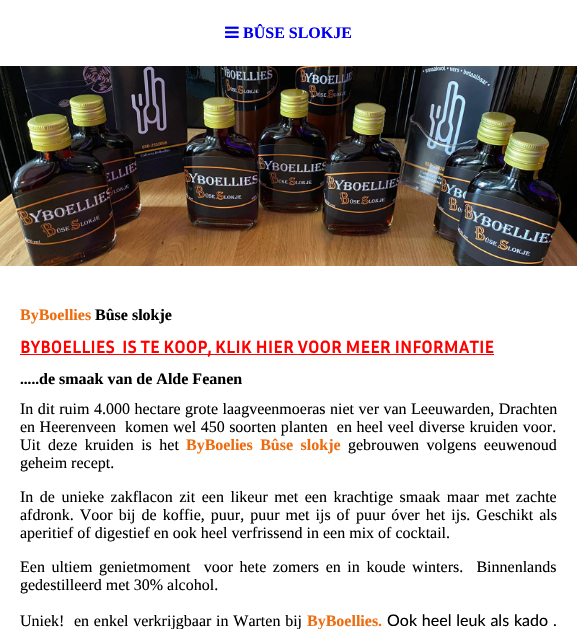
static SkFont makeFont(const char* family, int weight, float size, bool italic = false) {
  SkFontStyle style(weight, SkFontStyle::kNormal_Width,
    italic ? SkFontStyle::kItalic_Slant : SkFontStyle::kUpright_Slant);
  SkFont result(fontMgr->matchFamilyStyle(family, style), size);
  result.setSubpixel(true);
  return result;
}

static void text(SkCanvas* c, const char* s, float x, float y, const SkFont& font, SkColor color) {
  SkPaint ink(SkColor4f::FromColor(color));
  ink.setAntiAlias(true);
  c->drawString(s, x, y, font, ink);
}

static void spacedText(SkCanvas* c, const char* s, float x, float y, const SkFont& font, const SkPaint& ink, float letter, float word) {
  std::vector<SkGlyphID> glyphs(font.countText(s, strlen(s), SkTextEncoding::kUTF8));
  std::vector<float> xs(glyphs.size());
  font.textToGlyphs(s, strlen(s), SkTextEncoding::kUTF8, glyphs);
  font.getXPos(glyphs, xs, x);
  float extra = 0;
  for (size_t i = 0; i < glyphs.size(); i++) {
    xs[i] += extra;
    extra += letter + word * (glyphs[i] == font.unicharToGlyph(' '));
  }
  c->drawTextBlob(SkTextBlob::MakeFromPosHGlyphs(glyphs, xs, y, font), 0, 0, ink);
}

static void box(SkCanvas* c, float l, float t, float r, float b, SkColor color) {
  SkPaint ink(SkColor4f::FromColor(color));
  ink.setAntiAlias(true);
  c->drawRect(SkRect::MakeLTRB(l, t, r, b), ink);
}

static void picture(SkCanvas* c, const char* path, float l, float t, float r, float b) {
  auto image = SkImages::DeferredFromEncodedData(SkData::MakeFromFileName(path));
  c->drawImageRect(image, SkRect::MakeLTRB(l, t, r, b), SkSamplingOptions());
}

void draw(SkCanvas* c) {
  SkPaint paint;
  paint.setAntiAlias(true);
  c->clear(0xffffffff);
  picture(c, "img_01.png", 225, 26, 239, 38);
  SkFont face1 = makeFont("Liberation Serif", 700, 16);
  text(c, "BÛSE SLOKJE", 243, 38, face1, 0xff0000ee);
  picture(c, "img_02.png", 0, 66, 577, 266);
  text(c, "ByBoellies", 20, 320, face1, 0xffed6c10);
  text(c, "Bûse slokje", 95, 320, face1, 0xff000000);
  box(c, 20, 354, 494, 355, 0xffff0000);
  SkFont face2 = makeFont("Inria Sans", 700, 18);
  text(c, "BYBOELLIES  IS TE KOOP, KLIK HIER VOOR MEER INFORMATIE", 20, 353, face2, 0xffff0000);
  SkFont face3 = makeFont("Lato", 700, 16);
  text(c, ".....", 20, 384, face3, 0xff000000);
  text(c, "de smaak van de Alde Feanen", 39, 384, face1, 0xff000000);
  SkFont face4 = makeFont("Liberation Serif", 400, 16);
  paint.setColor(0xff000000);
  spacedText(c, "In dit ruim 4.000 hectare grote laagveenmoeras niet ver van Leeuwarden, Drachten", 20, 414, face4, paint, 0, 0.5f);
  spacedText(c, "en Heerenveen  komen wel 450 soorten planten  en heel veel diverse kruiden voor.", 20, 432, face4, paint, 0, 0.5f);
  spacedText(c, "Uit deze kruiden is het", 20, 450, face4, paint, 0, 3.5f);
  paint.setColor(0xffed6c10);
  spacedText(c, "ByBoelies Bûse slokje", 186, 450, face1, paint, 0, 3.5f);
  paint.setColor(0xff000000);
  spacedText(c, "gebrouwen volgens eeuwenoud", 348, 450, face4, paint, 0, 3.5f);
  text(c, "geheim recept.", 20, 468, face4, 0xff000000);
  spacedText(c, "In de unieke zakflacon zit een likeur met een krachtige smaak maar met zachte", 20, 502, face4, paint, 0, 2.5f);
  spacedText(c, "afdronk. Voor bij de koffie, puur, puur met ijs of puur óver het ijs. Geschikt als", 20, 520, face4, paint, 0, 2);
  text(c, "aperitief of digestief en ook heel verfrissend in een mix of cocktail.", 20, 538, face4, 0xff000000);
  spacedText(c, "Een ultiem genietmoment  voor hete zomers en in koude winters.  Binnenlands", 20, 572, face4, paint, 0, 2.6f);
  text(c, "gedestilleerd met 30% alcohol.", 20, 590, face4, 0xff000000);
  spacedText(c, "Uniek!  en enkel verkrijgbaar in Warten bij", 20, 626, face4, paint, 0, 0.75f);
  text(c, "ByBoellies.", 307, 626, face1, 0xffed6c10);
  SkFont face5 = makeFont("Lato", 400, 16);
  spacedText(c, "Ook heel leuk als kado .", 387, 626, face5, paint, 0, 0.75f);
}
